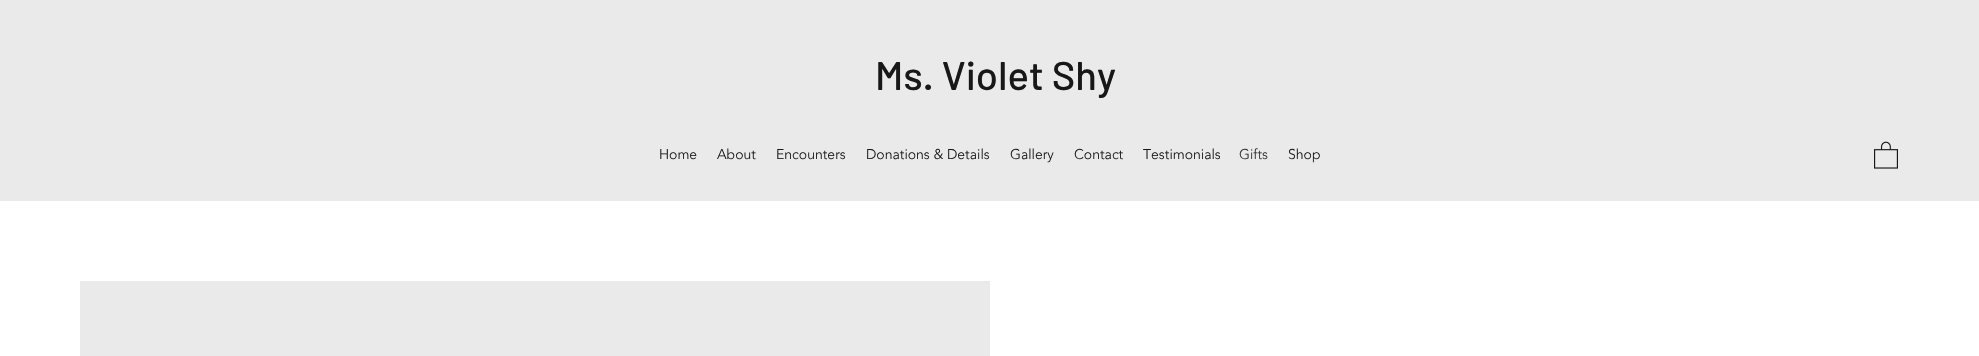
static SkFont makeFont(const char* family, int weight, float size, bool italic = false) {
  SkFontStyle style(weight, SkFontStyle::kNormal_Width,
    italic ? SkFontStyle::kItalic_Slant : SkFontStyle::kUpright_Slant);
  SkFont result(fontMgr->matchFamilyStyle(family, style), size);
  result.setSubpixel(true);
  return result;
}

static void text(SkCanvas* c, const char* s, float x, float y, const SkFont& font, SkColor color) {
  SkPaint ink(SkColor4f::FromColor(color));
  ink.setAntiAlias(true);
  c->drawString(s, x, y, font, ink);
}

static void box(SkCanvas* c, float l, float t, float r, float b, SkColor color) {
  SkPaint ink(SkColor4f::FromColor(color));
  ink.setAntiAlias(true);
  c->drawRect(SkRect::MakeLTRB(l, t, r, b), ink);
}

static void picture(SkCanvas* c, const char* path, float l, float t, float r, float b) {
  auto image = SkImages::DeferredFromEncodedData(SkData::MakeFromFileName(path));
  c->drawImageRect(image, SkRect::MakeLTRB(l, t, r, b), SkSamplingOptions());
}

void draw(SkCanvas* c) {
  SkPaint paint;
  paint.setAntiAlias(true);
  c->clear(0xffffffff);
  box(c, 0, 0, 1979, 201, 0xffeaeaea);
  SkFont face1 = makeFont("Barlow", 500, 40);
  text(c, "Ms. Violet Shy", 875, 90, face1, 0xff181818);
  SkFont face2 = makeFont("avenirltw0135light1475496", 300, 14);
  text(c, "Home", 659, 159, face2, 0xff181818);
  text(c, "About", 717, 159, face2, 0xff181818);
  text(c, "Encounters", 776, 159, face2, 0xff181818);
  text(c, "Donations & Details", 866, 159, face2, 0xff181818);
  text(c, "Gallery", 1010, 159, face2, 0xff181818);
  text(c, "Contact", 1074, 159, face2, 0xff181818);
  text(c, "Testimonials", 1143, 159, face2, 0xff181818);
  text(c, "Gifts", 1239, 159, face2, 0xff303030);
  text(c, "Shop", 1288, 159, face2, 0xff181818);
  picture(c, "img_01.png", 1874, 141, 1898, 169);
  box(c, 80, 281, 990, 356, 0xffeaeaea);
}
